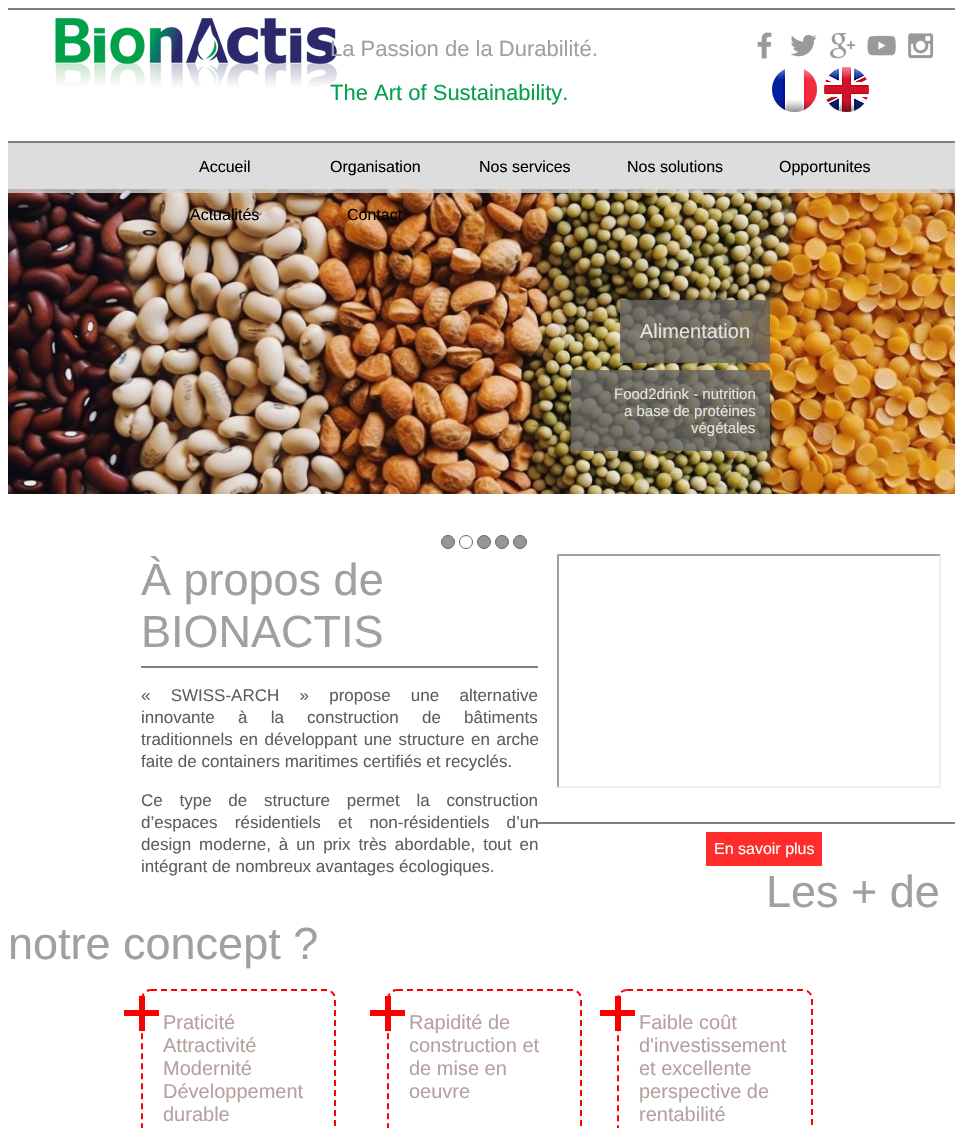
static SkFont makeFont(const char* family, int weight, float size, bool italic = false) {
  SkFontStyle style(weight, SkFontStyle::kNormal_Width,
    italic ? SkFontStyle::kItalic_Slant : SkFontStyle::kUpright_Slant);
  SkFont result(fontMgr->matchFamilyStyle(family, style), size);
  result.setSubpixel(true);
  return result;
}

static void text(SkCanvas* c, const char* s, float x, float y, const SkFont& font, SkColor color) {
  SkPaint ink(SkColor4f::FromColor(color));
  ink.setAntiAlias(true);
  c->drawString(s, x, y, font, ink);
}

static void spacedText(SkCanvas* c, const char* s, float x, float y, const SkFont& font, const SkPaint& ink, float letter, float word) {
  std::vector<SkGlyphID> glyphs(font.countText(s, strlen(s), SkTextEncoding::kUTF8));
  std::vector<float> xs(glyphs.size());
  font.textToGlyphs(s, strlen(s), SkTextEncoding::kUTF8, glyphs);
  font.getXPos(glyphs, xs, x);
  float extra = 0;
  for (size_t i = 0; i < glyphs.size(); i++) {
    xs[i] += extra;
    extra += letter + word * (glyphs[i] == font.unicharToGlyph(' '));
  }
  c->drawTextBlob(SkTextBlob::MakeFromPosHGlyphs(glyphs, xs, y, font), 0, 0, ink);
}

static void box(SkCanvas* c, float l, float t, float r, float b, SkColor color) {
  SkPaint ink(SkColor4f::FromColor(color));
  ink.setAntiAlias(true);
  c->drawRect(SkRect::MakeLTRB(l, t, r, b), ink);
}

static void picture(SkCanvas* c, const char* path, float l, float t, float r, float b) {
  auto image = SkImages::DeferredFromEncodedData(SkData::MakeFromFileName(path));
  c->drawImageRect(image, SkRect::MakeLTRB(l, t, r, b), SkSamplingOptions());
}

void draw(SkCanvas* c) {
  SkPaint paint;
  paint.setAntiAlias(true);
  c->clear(0xffffffff);
  box(c, 8, 8, 955, 10, 0xff808080);
  picture(c, "img_01.png", 55, 18, 337, 87);
  SkFont face1 = makeFont("Liberation Sans", 400, 22);
  text(c, "La Passion de la Durabilité.", 330, 56, face1, 0xffa0a0a0);
  text(c, "The Art of Sustainability.", 330, 100, face1, 0xff03a04a);
  picture(c, "img_02.png", 757, 32, 772, 59);
  picture(c, "img_03.png", 790, 34, 817, 57);
  picture(c, "img_04.png", 829, 32, 856, 59);
  picture(c, "img_05.png", 867, 35, 896, 56);
  picture(c, "img_06.png", 908, 33, 934, 59);
  picture(c, "img_07.png", 772, 69, 817, 112);
  picture(c, "img_08.png", 824, 67, 869, 112);
  box(c, 8, 141, 955, 143, 0xff808080);
  picture(c, "img_09.png", 8, 189, 955, 494);
  box(c, 8, 143, 955, 193, 0xccd5d5d5);
  SkFont face2 = makeFont("Liberation Sans", 400, 16);
  text(c, "Accueil", 199, 172, face2, 0xff000000);
  text(c, "Organisation", 330, 172, face2, 0xff000000);
  text(c, "Nos services", 479, 172, face2, 0xff000000);
  text(c, "Nos solutions", 627, 172, face2, 0xff000000);
  text(c, "Opportunites", 779, 172, face2, 0xff000000);
  text(c, "Actualités", 190, 220, face2, 0xff000000);
  text(c, "Contact", 347, 220, face2, 0xff000000);
  box(c, 620, 300, 770, 363, 0xcc646464);
  SkFont face3 = makeFont("Liberation Sans", 400, 20);
  text(c, "Alimentation", 640, 338, face3, 0xffe2e2df);
  box(c, 571, 370, 770, 451, 0xcc646464);
  SkFont face4 = makeFont("Liberation Sans", 400, 15);
  text(c, "Food2drink - nutrition", 614, 399, face4, 0xffe2e2df);
  text(c, "a base de protéines", 624, 416, face4, 0xffe2e2df);
  text(c, "végétales", 691, 433, face4, 0xffe2e2df);
  paint.setColor(0xff969696);
  c->drawCircle(448, 542, 6.5f, paint);
  paint.setStyle(SkPaint::kStroke_Style);
  paint.setStrokeWidth(1);
  paint.setColor(0xff666666);
  c->drawCircle(448, 542, 6.5f, paint);
  c->drawCircle(466, 542, 6.5f, paint);
  paint.setStyle(SkPaint::kFill_Style);
  paint.setColor(0xff969696);
  c->drawCircle(484, 542, 6.5f, paint);
  paint.setStyle(SkPaint::kStroke_Style);
  paint.setColor(0xff666666);
  c->drawCircle(484, 542, 6.5f, paint);
  paint.setStyle(SkPaint::kFill_Style);
  paint.setColor(0xff969696);
  c->drawCircle(502, 542, 6.5f, paint);
  paint.setStyle(SkPaint::kStroke_Style);
  paint.setColor(0xff666666);
  c->drawCircle(502, 542, 6.5f, paint);
  paint.setStyle(SkPaint::kFill_Style);
  paint.setColor(0xff969696);
  c->drawCircle(520, 542, 6.5f, paint);
  paint.setStyle(SkPaint::kStroke_Style);
  paint.setColor(0xff666666);
  c->drawCircle(520, 542, 6.5f, paint);
  SkFont face5 = makeFont("Liberation Sans", 400, 45);
  text(c, "À propos de", 141, 595, face5, 0xffa0a0a0);
  text(c, "BIONACTIS", 141, 647, face5, 0xffa0a0a0);
  box(c, 141, 666, 538, 668, 0xff808080);
  SkFont face6 = makeFont("Liberation Sans", 400, 17);
  paint.setStyle(SkPaint::kFill_Style);
  paint.setColor(0xff605e5e);
  spacedText(c, "« SWISS-ARCH » propose une alternative", 141, 701, face6, paint, 0, 15.5f);
  spacedText(c, "innovante à la construction de bâtiments", 141, 723, face6, paint, 0, 18.5f);
  spacedText(c, "traditionnels en développant une structure en arche", 141, 745, face6, paint, 0, 1.75f);
  text(c, "faite de containers maritimes certifiés et recyclés.", 141, 767, face6, 0xff605e5e);
  spacedText(c, "Ce type de structure permet la construction", 141, 806, face6, paint, 0, 12);
  spacedText(c, "d’espaces résidentiels et non-résidentiels d’un", 141, 828, face6, paint, 0, 12.5f);
  spacedText(c, "design moderne, à un prix très abordable, tout en", 141, 850, face6, paint, 0, 3.25f);
  text(c, "intégrant de nombreux avantages écologiques.", 141, 872, face6, 0xff605e5e);
  paint.setColor(0xff9f9f9f);
  c->drawPath(SkPathBuilder().moveTo(557, 554).lineTo(941, 554).lineTo(939, 556).lineTo(559, 556).close().detach(), paint);
  paint.setColor(0xffeeeeee);
  c->drawPath(SkPathBuilder().moveTo(941, 554).lineTo(941, 788).lineTo(939, 786).lineTo(939, 556).close().detach(), paint);
  c->drawPath(SkPathBuilder().moveTo(941, 788).lineTo(557, 788).lineTo(559, 786).lineTo(939, 786).close().detach(), paint);
  paint.setColor(0xff9f9f9f);
  c->drawPath(SkPathBuilder().moveTo(557, 788).lineTo(557, 554).lineTo(559, 556).lineTo(559, 786).close().detach(), paint);
  box(c, 538, 822, 955, 824, 0xff808080);
  box(c, 706, 832, 822, 866, 0xffff2c2c);
  text(c, "En savoir plus", 714, 854, face2, 0xffffffff);
  text(c, "Les + de", 766, 907, face5, 0xffa0a0a0);
  text(c, "notre concept ?", 8, 959, face5, 0xffa0a0a0);
  paint.setStyle(SkPaint::kStroke_Style);
  paint.setStrokeWidth(2);
  paint.setColor(0xffff0000);
  paint.setPathEffect(SkDashPathEffect::Make({{6, 4}}, 0));
  c->drawPath(SkPathBuilder().moveTo(151, 990).lineTo(326, 990).cubicTo(331, 990, 335, 994, 335, 999).lineTo(335, 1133).cubicTo(335, 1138, 331, 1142, 326, 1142).lineTo(151, 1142).cubicTo(146, 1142, 142, 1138, 142, 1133).lineTo(142, 999).cubicTo(142, 994, 146, 990, 151, 990).close().detach(), paint);
  paint.setPathEffect(nullptr);
  picture(c, "img_10.png", 124, 996, 159, 1031);
  text(c, "Praticité", 163, 1029, face3, 0xffb7a09f);
  text(c, "Attractivité", 163, 1052, face3, 0xffb7a09f);
  text(c, "Modernité", 163, 1075, face3, 0xffb7a09f);
  text(c, "Développement", 163, 1098, face3, 0xffb7a09f);
  text(c, "durable", 163, 1121, face3, 0xffb7a09f);
  paint.setPathEffect(SkDashPathEffect::Make({{6, 4}}, 0));
  c->drawPath(SkPathBuilder().moveTo(397, 990).lineTo(572, 990).cubicTo(577, 990, 581, 994, 581, 999).lineTo(581, 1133).cubicTo(581, 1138, 577, 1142, 572, 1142).lineTo(397, 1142).cubicTo(392, 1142, 388, 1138, 388, 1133).lineTo(388, 999).cubicTo(388, 994, 392, 990, 397, 990).close().detach(), paint);
  paint.setPathEffect(nullptr);
  picture(c, "img_10.png", 370, 996, 405, 1031);
  text(c, "Rapidité de", 409, 1029, face3, 0xffb7a09f);
  text(c, "construction et", 409, 1052, face3, 0xffb7a09f);
  text(c, "de mise en", 409, 1075, face3, 0xffb7a09f);
  text(c, "oeuvre", 409, 1098, face3, 0xffb7a09f);
  paint.setPathEffect(SkDashPathEffect::Make({{6, 4}}, 0));
  c->drawPath(SkPathBuilder().moveTo(627, 990).lineTo(803, 990).cubicTo(808, 990, 812, 994, 812, 999).lineTo(812, 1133).cubicTo(812, 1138, 808, 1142, 803, 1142).lineTo(627, 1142).cubicTo(622, 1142, 618, 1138, 618, 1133).lineTo(618, 999).cubicTo(618, 994, 622, 990, 627, 990).close().detach(), paint);
  paint.setPathEffect(nullptr);
  picture(c, "img_10.png", 600, 996, 635, 1031);
  text(c, "Faible coût", 639, 1029, face3, 0xffb7a09f);
  text(c, "d'investissement", 639, 1052, face3, 0xffb7a09f);
  text(c, "et excellente", 639, 1075, face3, 0xffb7a09f);
  text(c, "perspective de", 639, 1098, face3, 0xffb7a09f);
  text(c, "rentabilité", 639, 1121, face3, 0xffb7a09f);
}
